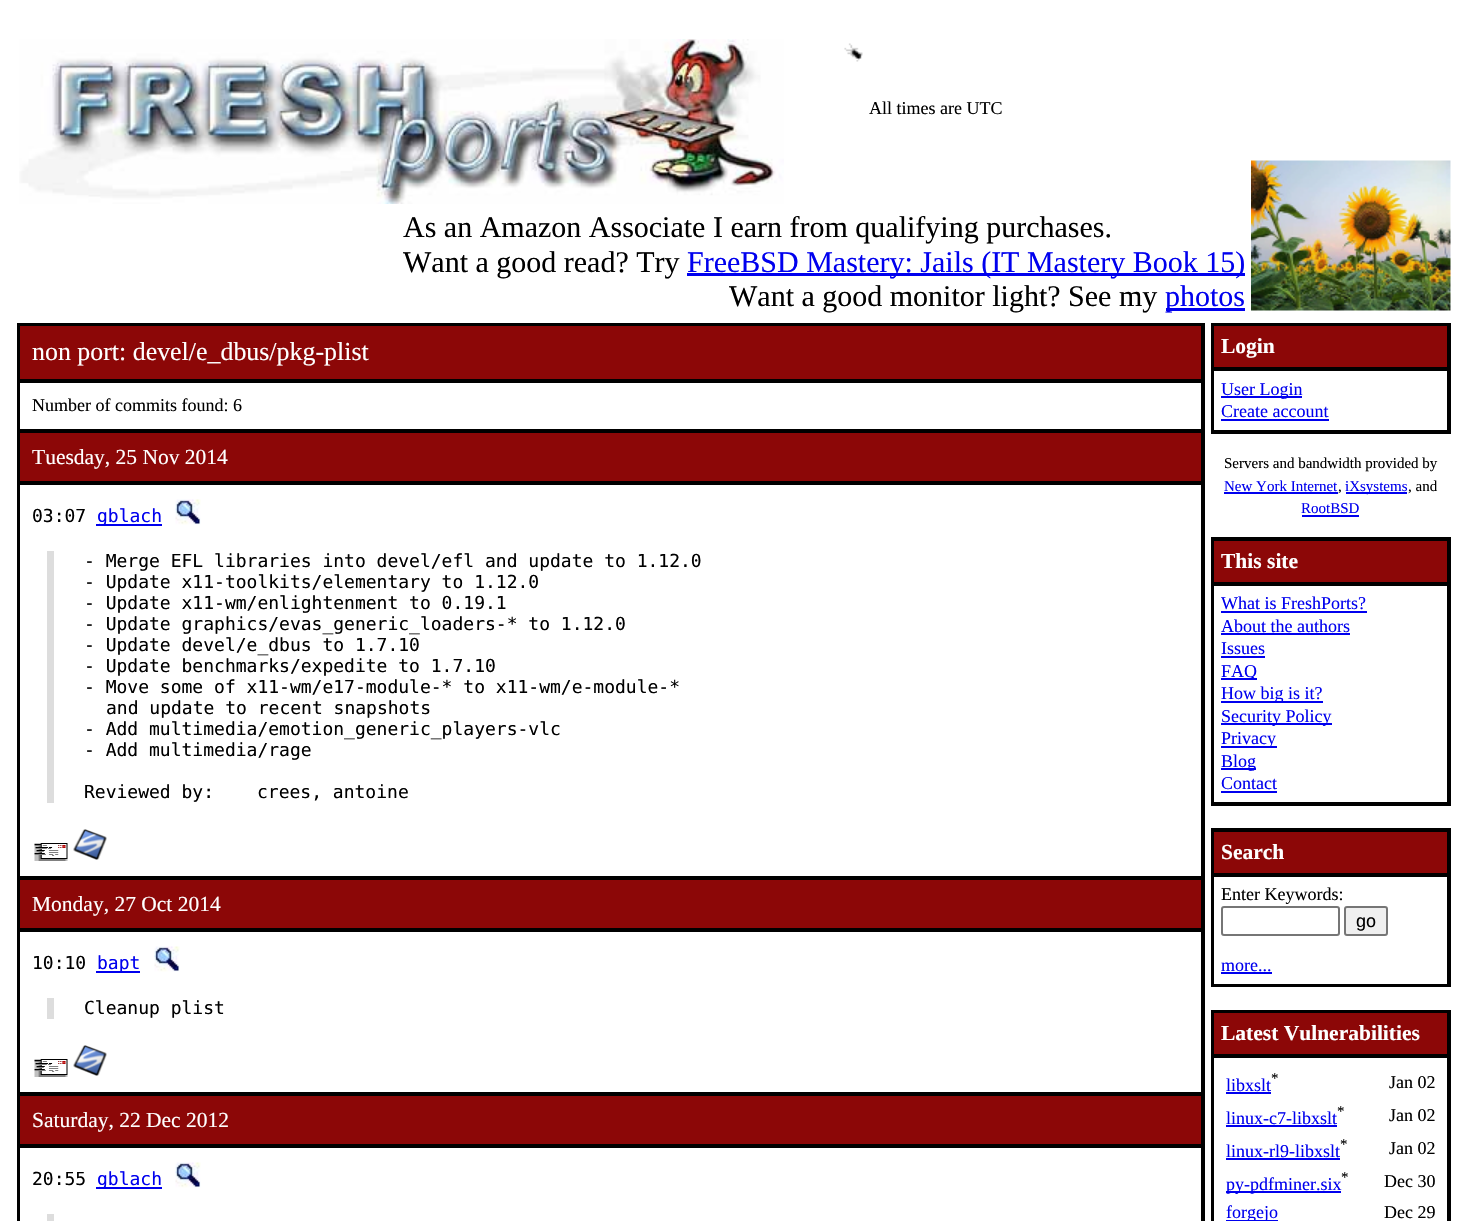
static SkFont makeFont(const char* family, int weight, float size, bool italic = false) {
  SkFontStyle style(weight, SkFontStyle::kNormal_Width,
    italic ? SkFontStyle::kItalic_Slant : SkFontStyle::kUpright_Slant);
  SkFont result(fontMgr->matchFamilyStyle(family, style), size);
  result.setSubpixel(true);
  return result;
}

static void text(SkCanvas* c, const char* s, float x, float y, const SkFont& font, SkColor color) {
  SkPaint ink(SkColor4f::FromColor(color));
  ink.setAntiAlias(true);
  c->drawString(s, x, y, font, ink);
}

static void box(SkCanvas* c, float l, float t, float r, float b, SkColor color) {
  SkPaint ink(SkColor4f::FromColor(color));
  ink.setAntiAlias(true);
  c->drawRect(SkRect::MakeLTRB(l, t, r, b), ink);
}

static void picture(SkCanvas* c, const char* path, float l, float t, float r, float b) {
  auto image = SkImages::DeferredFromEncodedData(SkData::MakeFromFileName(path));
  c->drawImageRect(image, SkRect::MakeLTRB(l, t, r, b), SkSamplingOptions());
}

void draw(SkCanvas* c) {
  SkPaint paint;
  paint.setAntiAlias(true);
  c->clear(0xffffffff);
  picture(c, "img_01.png", 19, 39, 784, 204);
  picture(c, "img_02.png", 844, 43, 863, 62);
  SkFont face1 = makeFont("Liberation Serif", 400, 18);
  text(c, "All times are UTC", 869, 114, face1, 0xff000000);
  SkFont face2 = makeFont("Liberation Serif", 400, 30);
  text(c, "As an Amazon Associate I earn from qualifying purchases.", 403, 237, face2, 0xff000000);
  text(c, "Want a good read? Try", 403, 272, face2, 0xff000000);
  box(c, 687, 273, 1245, 276, 0xff0000ee);
  text(c, "FreeBSD Mastery: Jails (IT Mastery Book 15)", 687, 272, face2, 0xff0000ee);
  text(c, "Want a good monitor light? See my", 729, 306, face2, 0xff000000);
  box(c, 1166, 308, 1245, 311, 0xff0000ee);
  text(c, "photos", 1165, 306, face2, 0xff0000ee);
  picture(c, "img_03.png", 1251, 160, 1451, 311);
  paint.setStyle(SkPaint::kStroke_Style);
  paint.setStrokeWidth(2);
  paint.setColor(0xff000000);
  c->drawRect(SkRect::MakeLTRB(18, 324, 1204, 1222), paint);
  paint.setStyle(SkPaint::kFill_Style);
  paint.setColor(0xff8c0707);
  c->drawRect(SkRect::MakeLTRB(19, 325, 1202, 380), paint);
  paint.setStyle(SkPaint::kStroke_Style);
  paint.setColor(0xff000000);
  c->drawRect(SkRect::MakeLTRB(19, 325, 1202, 380), paint);
  SkFont face3 = makeFont("Liberation Serif", 400, 25.9f);
  text(c, "non port: devel/e_dbus/pkg-plist", 32, 360, face3, 0xffffffff);
  c->drawRect(SkRect::MakeLTRB(19, 382, 1202, 430), paint);
  text(c, "Number of commits found: 6", 32, 411, face1, 0xff000000);
  paint.setStyle(SkPaint::kFill_Style);
  paint.setColor(0xff8c0707);
  c->drawRect(SkRect::MakeLTRB(19, 432, 1202, 482), paint);
  paint.setStyle(SkPaint::kStroke_Style);
  paint.setColor(0xff000000);
  c->drawRect(SkRect::MakeLTRB(19, 432, 1202, 482), paint);
  SkFont face4 = makeFont("Liberation Serif", 400, 21.5f);
  text(c, "Tuesday, 25 Nov 2014", 32, 464, face4, 0xffffffff);
  c->drawRect(SkRect::MakeLTRB(19, 484, 1202, 877), paint);
  SkFont face5 = makeFont("DejaVu Sans Mono", 400, 18);
  text(c, "03:07", 32, 522, face5, 0xff000000);
  box(c, 96, 524, 162, 526, 0xff0000ee);
  text(c, "gblach", 97, 522, face5, 0xff0000ee);
  picture(c, "img_04.png", 175, 499, 201, 525);
  box(c, 47, 551, 54, 803, 0xffdddddd);
  text(c, "- Merge EFL libraries into devel/efl and update to 1.12.0", 84, 567, face5, 0xff000000);
  text(c, "- Update x11-toolkits/elementary to 1.12.0", 84, 588, face5, 0xff000000);
  text(c, "- Update x11-wm/enlightenment to 0.19.1", 84, 609, face5, 0xff000000);
  text(c, "- Update graphics/evas_generic_loaders-* to 1.12.0", 84, 630, face5, 0xff000000);
  text(c, "- Update devel/e_dbus to 1.7.10", 84, 651, face5, 0xff000000);
  text(c, "- Update benchmarks/expedite to 1.7.10", 84, 672, face5, 0xff000000);
  text(c, "- Move some of x11-wm/e17-module-* to x11-wm/e-module-*", 84, 693, face5, 0xff000000);
  text(c, "and update to recent snapshots", 106, 714, face5, 0xff000000);
  text(c, "- Add multimedia/emotion_generic_players-vlc", 84, 735, face5, 0xff000000);
  text(c, "- Add multimedia/rage", 84, 756, face5, 0xff000000);
  text(c, "Reviewed by:", 84, 798, face5, 0xff000000);
  text(c, "crees, antoine", 257, 798, face5, 0xff000000);
  picture(c, "img_05.png", 34, 843, 68, 861);
  picture(c, "img_06.png", 73, 829, 107, 860);
  paint.setStyle(SkPaint::kFill_Style);
  paint.setColor(0xff8c0707);
  c->drawRect(SkRect::MakeLTRB(19, 879, 1202, 929), paint);
  paint.setStyle(SkPaint::kStroke_Style);
  paint.setColor(0xff000000);
  c->drawRect(SkRect::MakeLTRB(19, 879, 1202, 929), paint);
  text(c, "Monday, 27 Oct 2014", 32, 911, face4, 0xffffffff);
  c->drawRect(SkRect::MakeLTRB(19, 931, 1202, 1093), paint);
  text(c, "10:10", 32, 969, face5, 0xff000000);
  box(c, 96, 971, 140, 973, 0xff0000ee);
  text(c, "bapt", 97, 969, face5, 0xff0000ee);
  picture(c, "img_04.png", 154, 946, 180, 972);
  box(c, 47, 998, 54, 1019, 0xffdddddd);
  text(c, "Cleanup plist", 84, 1014, face5, 0xff000000);
  picture(c, "img_05.png", 34, 1059, 68, 1077);
  picture(c, "img_06.png", 73, 1045, 107, 1076);
  paint.setStyle(SkPaint::kFill_Style);
  paint.setColor(0xff8c0707);
  c->drawRect(SkRect::MakeLTRB(19, 1095, 1202, 1145), paint);
  paint.setStyle(SkPaint::kStroke_Style);
  paint.setColor(0xff000000);
  c->drawRect(SkRect::MakeLTRB(19, 1095, 1202, 1145), paint);
  text(c, "Saturday, 22 Dec 2012", 32, 1127, face4, 0xffffffff);
  c->drawRect(SkRect::MakeLTRB(19, 1147, 1202, 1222), paint);
  text(c, "20:55", 32, 1185, face5, 0xff000000);
  box(c, 96, 1187, 162, 1189, 0xff0000ee);
  text(c, "gblach", 97, 1185, face5, 0xff0000ee);
  picture(c, "img_04.png", 175, 1162, 201, 1188);
  box(c, 47, 1214, 54, 1221, 0xffdddddd);
  c->drawRect(SkRect::MakeLTRB(1212, 324, 1450, 433), paint);
  paint.setStyle(SkPaint::kFill_Style);
  paint.setColor(0xff8c0707);
  c->drawRect(SkRect::MakeLTRB(1213, 325, 1448, 368), paint);
  paint.setStyle(SkPaint::kStroke_Style);
  paint.setColor(0xff000000);
  c->drawRect(SkRect::MakeLTRB(1213, 325, 1448, 368), paint);
  SkFont face6 = makeFont("Liberation Serif", 700, 21.5f);
  text(c, "Login", 1221, 353, face6, 0xffffffff);
  c->drawRect(SkRect::MakeLTRB(1213, 370, 1448, 431), paint);
  box(c, 1221, 396, 1302, 398, 0xff0000ee);
  text(c, "User Login", 1221, 395, face1, 0xff0000ee);
  text(c, "Create account", 1221, 417, face1, 0xff0000ee);
  box(c, 1221, 419, 1329, 421, 0xff0000ee);
  SkFont face7 = makeFont("Liberation Serif", 400, 15);
  text(c, "Servers and bandwidth provided by", 1224, 468, face7, 0xff000000);
  text(c, "New York Internet", 1224, 491, face7, 0xff0000ee);
  text(c, ",", 1338, 491, face7, 0xff000000);
  box(c, 1224, 492, 1338, 494, 0xff0000ee);
  box(c, 1346, 492, 1407, 494, 0xff0000ee);
  text(c, "iXsystems", 1345, 491, face7, 0xff0000ee);
  text(c, ", and", 1408, 491, face7, 0xff000000);
  text(c, "RootBSD", 1301, 513, face7, 0xff0000ee);
  box(c, 1302, 515, 1359, 517, 0xff0000ee);
  c->drawRect(SkRect::MakeLTRB(1212, 538, 1450, 805), paint);
  paint.setStyle(SkPaint::kFill_Style);
  paint.setColor(0xff8c0707);
  c->drawRect(SkRect::MakeLTRB(1213, 540, 1448, 583), paint);
  paint.setStyle(SkPaint::kStroke_Style);
  paint.setColor(0xff000000);
  c->drawRect(SkRect::MakeLTRB(1213, 540, 1448, 583), paint);
  text(c, "This site", 1221, 568, face6, 0xffffffff);
  c->drawRect(SkRect::MakeLTRB(1213, 585, 1448, 803), paint);
  text(c, "What is FreshPorts?", 1221, 609, face1, 0xff0000ee);
  box(c, 1221, 611, 1367, 613, 0xff0000ee);
  text(c, "About the authors", 1221, 632, face1, 0xff0000ee);
  box(c, 1221, 633, 1350, 635, 0xff0000ee);
  text(c, "Issues", 1221, 654, face1, 0xff0000ee);
  box(c, 1221, 656, 1265, 658, 0xff0000ee);
  box(c, 1221, 678, 1257, 680, 0xff0000ee);
  text(c, "FAQ", 1221, 677, face1, 0xff0000ee);
  box(c, 1221, 701, 1323, 703, 0xff0000ee);
  text(c, "How big is it?", 1221, 699, face1, 0xff0000ee);
  box(c, 1221, 723, 1332, 725, 0xff0000ee);
  text(c, "Security Policy", 1221, 722, face1, 0xff0000ee);
  box(c, 1221, 746, 1277, 748, 0xff0000ee);
  text(c, "Privacy", 1221, 744, face1, 0xff0000ee);
  box(c, 1221, 768, 1256, 770, 0xff0000ee);
  text(c, "Blog", 1221, 767, face1, 0xff0000ee);
  text(c, "Contact", 1221, 789, face1, 0xff0000ee);
  box(c, 1221, 791, 1277, 793, 0xff0000ee);
  c->drawRect(SkRect::MakeLTRB(1212, 829, 1450, 986), paint);
  paint.setStyle(SkPaint::kFill_Style);
  paint.setColor(0xff8c0707);
  c->drawRect(SkRect::MakeLTRB(1213, 831, 1448, 874), paint);
  paint.setStyle(SkPaint::kStroke_Style);
  paint.setColor(0xff000000);
  c->drawRect(SkRect::MakeLTRB(1213, 831, 1448, 874), paint);
  text(c, "Search", 1221, 859, face6, 0xffffffff);
  c->drawRect(SkRect::MakeLTRB(1213, 876, 1448, 985), paint);
  text(c, "Enter Keywords:", 1221, 900, face1, 0xff000000);
  paint.setColor(0xff767676);
  c->drawRoundRect(SkRect::MakeLTRB(1222, 907, 1339, 935), 2, 2, paint);
  paint.setStyle(SkPaint::kFill_Style);
  paint.setColor(0xffefefef);
  c->drawRoundRect(SkRect::MakeLTRB(1345, 907, 1387, 935), 2, 2, paint);
  paint.setStyle(SkPaint::kStroke_Style);
  paint.setColor(0xff767676);
  c->drawRoundRect(SkRect::MakeLTRB(1345, 907, 1387, 935), 2, 2, paint);
  SkFont face8 = makeFont("Liberation Sans", 400, 18);
  text(c, "go", 1356, 927, face8, 0xff000000);
  text(c, "more...", 1221, 971, face1, 0xff0000ee);
  box(c, 1221, 972, 1272, 974, 0xff0000ee);
  paint.setColor(0xff000000);
  c->drawRect(SkRect::MakeLTRB(1212, 1011, 1450, 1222), paint);
  paint.setStyle(SkPaint::kFill_Style);
  paint.setColor(0xff8c0707);
  c->drawRect(SkRect::MakeLTRB(1213, 1012, 1448, 1055), paint);
  paint.setStyle(SkPaint::kStroke_Style);
  paint.setColor(0xff000000);
  c->drawRect(SkRect::MakeLTRB(1213, 1012, 1448, 1055), paint);
  text(c, "Latest Vulnerabilities", 1221, 1040, face6, 0xffffffff);
  c->drawRect(SkRect::MakeLTRB(1213, 1057, 1448, 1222), paint);
  text(c, "*", 1271, 1083, face7, 0xff000000);
  text(c, "libxslt", 1226, 1091, face1, 0xff0000ee);
  box(c, 1226, 1092, 1271, 1094, 0xff0000ee);
  text(c, "Jan 02", 1389, 1088, face1, 0xff000000);
  text(c, "*", 1337, 1116, face7, 0xff000000);
  text(c, "linux-c7-libxslt", 1226, 1124, face1, 0xff0000ee);
  box(c, 1226, 1125, 1337, 1127, 0xff0000ee);
  text(c, "Jan 02", 1389, 1121, face1, 0xff000000);
  text(c, "*", 1340, 1149, face7, 0xff000000);
  text(c, "linux-rl9-libxslt", 1226, 1157, face1, 0xff0000ee);
  box(c, 1226, 1158, 1340, 1160, 0xff0000ee);
  text(c, "Jan 02", 1389, 1154, face1, 0xff000000);
  text(c, "*", 1341, 1182, face7, 0xff000000);
  box(c, 1226, 1191, 1341, 1193, 0xff0000ee);
  text(c, "py-pdfminer.six", 1226, 1190, face1, 0xff0000ee);
  text(c, "Dec 30", 1384, 1187, face1, 0xff000000);
  box(c, 1226, 1220, 1278, 1221, 0xff0000ee);
  text(c, "forgejo", 1226, 1218, face1, 0xff0000ee);
  text(c, "Dec 29", 1384, 1218, face1, 0xff000000);
}
